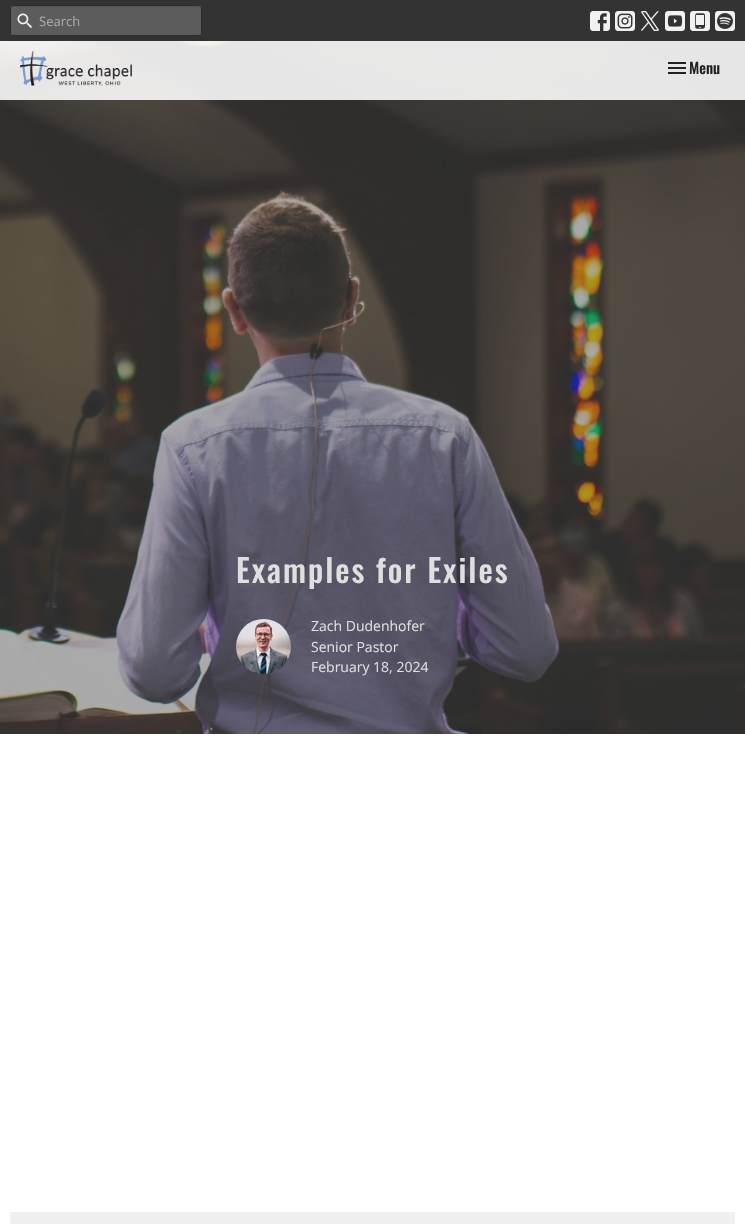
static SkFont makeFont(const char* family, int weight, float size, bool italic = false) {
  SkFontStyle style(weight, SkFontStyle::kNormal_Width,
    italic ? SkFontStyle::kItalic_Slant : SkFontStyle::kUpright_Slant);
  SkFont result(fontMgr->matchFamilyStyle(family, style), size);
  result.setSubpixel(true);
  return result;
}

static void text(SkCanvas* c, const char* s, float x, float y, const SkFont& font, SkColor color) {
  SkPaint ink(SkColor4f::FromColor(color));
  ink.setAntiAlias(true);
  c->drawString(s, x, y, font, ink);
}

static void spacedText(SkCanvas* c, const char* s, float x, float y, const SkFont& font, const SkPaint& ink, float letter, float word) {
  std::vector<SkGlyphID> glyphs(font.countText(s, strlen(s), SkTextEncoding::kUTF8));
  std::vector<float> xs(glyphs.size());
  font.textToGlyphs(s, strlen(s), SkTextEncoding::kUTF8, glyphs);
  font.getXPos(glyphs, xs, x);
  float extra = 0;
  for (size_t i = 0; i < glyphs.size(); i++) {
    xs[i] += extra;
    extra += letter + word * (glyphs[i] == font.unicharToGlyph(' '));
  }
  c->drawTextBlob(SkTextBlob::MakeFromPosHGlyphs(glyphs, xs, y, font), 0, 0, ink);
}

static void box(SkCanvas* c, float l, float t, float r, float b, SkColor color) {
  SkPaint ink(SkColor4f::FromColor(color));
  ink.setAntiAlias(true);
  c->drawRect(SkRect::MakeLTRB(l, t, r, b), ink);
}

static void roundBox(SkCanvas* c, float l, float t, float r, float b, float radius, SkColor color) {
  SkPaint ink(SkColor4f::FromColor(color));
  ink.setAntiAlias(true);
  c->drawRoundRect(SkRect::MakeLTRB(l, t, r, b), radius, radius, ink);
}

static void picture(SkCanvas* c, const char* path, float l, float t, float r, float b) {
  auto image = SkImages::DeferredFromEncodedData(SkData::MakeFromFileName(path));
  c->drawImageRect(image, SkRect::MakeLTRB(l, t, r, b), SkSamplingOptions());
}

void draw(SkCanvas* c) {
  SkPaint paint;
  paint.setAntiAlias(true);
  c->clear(0xffffffff);
  box(c, 0, 0, 745, 41, 0xff333333);
  roundBox(c, 10, 5, 202, 36, 3, 0xff5c5c5c);
  paint.setColor(0xff555555);
  c->drawPath(SkPathBuilder().moveTo(13, 7).lineTo(199, 7).lineTo(201, 8).lineTo(201, 9).lineTo(201, 8).cubicTo(201, 7, 200, 6, 199, 6).lineTo(13, 6).cubicTo(12, 6, 11, 7, 11, 8).lineTo(11, 9).cubicTo(11, 8, 12, 7, 13, 7).close().detach(), paint);
  paint.setStyle(SkPaint::kStroke_Style);
  paint.setStrokeWidth(1);
  paint.setColor(0xff2b2b2b);
  c->drawRoundRect(SkRect::MakeLTRB(10.5f, 5.5f, 201.5f, 35.5f), 2.5f, 2.5f, paint);
  picture(c, "img_01.png", 17, 13, 32, 28);
  SkFont face1 = makeFont("Open Sans", 400, 13);
  text(c, "Search", 39, 26, face1, 0xffa7a7a7);
  picture(c, "img_02.png", 590, 11, 610, 31);
  picture(c, "img_03.png", 615, 11, 635, 31);
  picture(c, "img_04.png", 641, 11, 659, 31);
  picture(c, "img_05.png", 665, 11, 685, 31);
  picture(c, "img_06.png", 690, 11, 710, 31);
  picture(c, "img_07.png", 715, 11, 735, 31);
  picture(c, "img_10.png", 0, 41, 745, 734);
  box(c, 0, 41, 745, 100, 0xe0ffffff);
  picture(c, "img_08.png", 20, 51, 132, 86);
  picture(c, "img_09.png", 668, 62, 686, 74);
  SkFont face2 = makeFont("Oswald", 500, 15);
  text(c, "Menu", 689, 74, face2, 0xff222222);
  SkFont face3 = makeFont("Oswald", 500, 32);
  paint.setStyle(SkPaint::kFill_Style);
  paint.setColor(0xffdfdfdf);
  spacedText(c, "Examples for Exiles", 236, 583, face3, paint, 2, 0);
  picture(c, "img_11.png", 236, 619, 291, 674);
  SkFont face4 = makeFont("Open Sans", 400, 14);
  text(c, "Zach Dudenhofer", 311, 631, face4, 0xffdfdfdf);
  text(c, "Senior Pastor", 311, 652, face4, 0xffdfdfdf);
  text(c, "February 18, 2024", 311, 672, face4, 0xffdfdfdf);
  box(c, 10, 1212, 735, 1224, 0xfff0f0f0);
}
